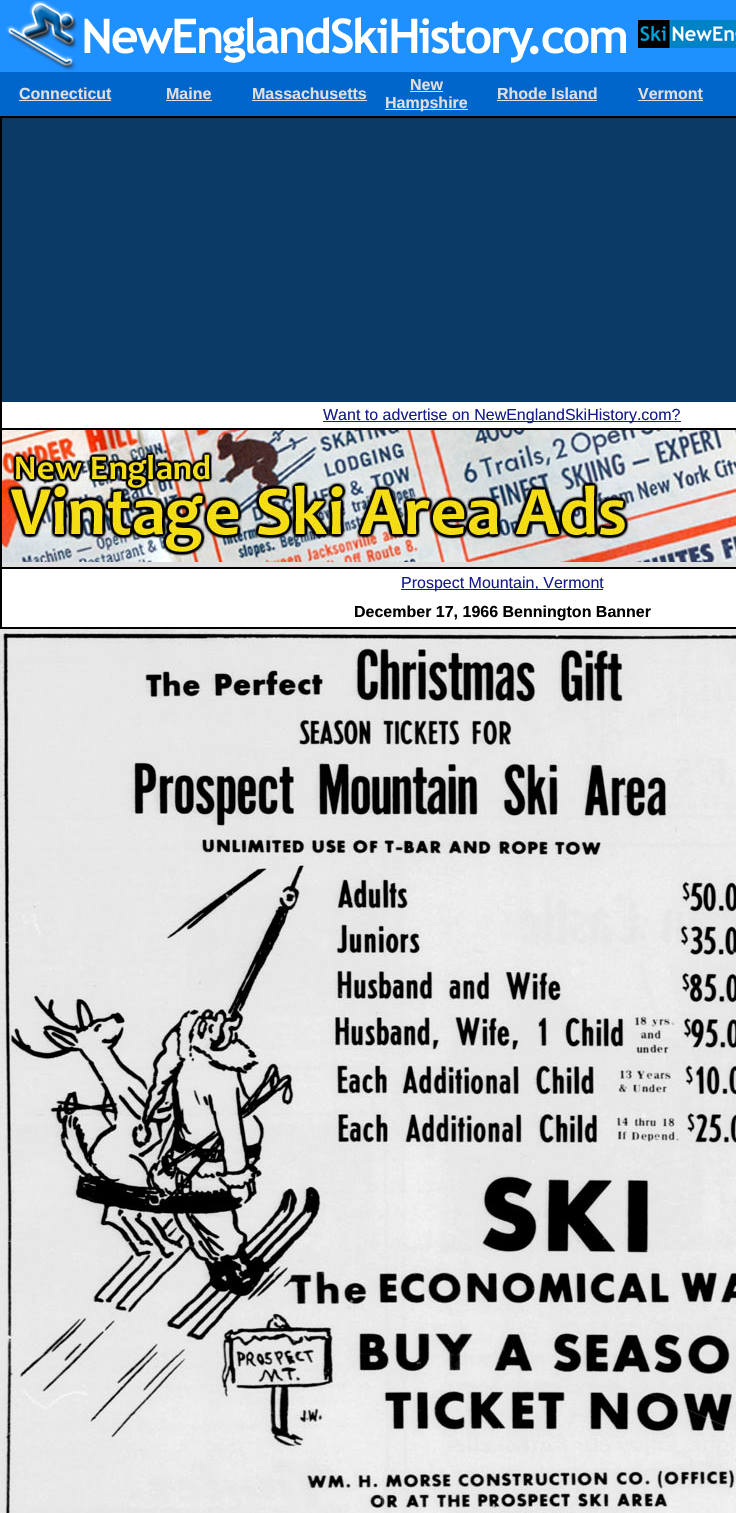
static SkFont makeFont(const char* family, int weight, float size, bool italic = false) {
  SkFontStyle style(weight, SkFontStyle::kNormal_Width,
    italic ? SkFontStyle::kItalic_Slant : SkFontStyle::kUpright_Slant);
  SkFont result(fontMgr->matchFamilyStyle(family, style), size);
  result.setSubpixel(true);
  return result;
}

static void text(SkCanvas* c, const char* s, float x, float y, const SkFont& font, SkColor color) {
  SkPaint ink(SkColor4f::FromColor(color));
  ink.setAntiAlias(true);
  c->drawString(s, x, y, font, ink);
}

static void box(SkCanvas* c, float l, float t, float r, float b, SkColor color) {
  SkPaint ink(SkColor4f::FromColor(color));
  ink.setAntiAlias(true);
  c->drawRect(SkRect::MakeLTRB(l, t, r, b), ink);
}

static void picture(SkCanvas* c, const char* path, float l, float t, float r, float b) {
  auto image = SkImages::DeferredFromEncodedData(SkData::MakeFromFileName(path));
  c->drawImageRect(image, SkRect::MakeLTRB(l, t, r, b), SkSamplingOptions());
}

void draw(SkCanvas* c) {
  SkPaint paint;
  paint.setAntiAlias(true);
  c->clear(0xff1e90ff);
  picture(c, "img_01.png", 6, 1, 626, 71);
  picture(c, "img_02.png", 638, 20, 736, 48);
  box(c, 0, 72, 736, 116, 0xff0066cc);
  SkFont face1 = makeFont("Liberation Sans", 700, 16);
  text(c, "Connecticut", 19, 99, face1, 0xffdedede);
  box(c, 19, 100, 111, 101, 0xffdedede);
  text(c, "Maine", 166, 99, face1, 0xffdedede);
  box(c, 166, 100, 212, 101, 0xffdedede);
  text(c, "Massachusetts", 252, 99, face1, 0xffdedede);
  box(c, 252, 100, 367, 101, 0xffdedede);
  text(c, "New", 410, 90, face1, 0xffdedede);
  box(c, 410, 91, 443, 92, 0xffdedede);
  box(c, 385, 109, 468, 110, 0xffdedede);
  text(c, "Hampshire", 385, 108, face1, 0xffdedede);
  text(c, "Rhode Island", 497, 99, face1, 0xffdedede);
  box(c, 497, 100, 597, 101, 0xffdedede);
  text(c, "Vermont", 638, 99, face1, 0xffdedede);
  box(c, 638, 100, 703, 101, 0xffdedede);
  paint.setStyle(SkPaint::kStroke_Style);
  paint.setStrokeWidth(1);
  paint.setColor(0xff000000);
  c->drawRect(SkRect::MakeLTRB(0.5f, 116.5f, 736.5f, 628.5f), paint);
  box(c, 2, 118, 736, 402, 0xff0c3a66);
  c->drawRect(SkRect::MakeLTRB(1.5f, 117.5f, 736.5f, 428.5f), paint);
  box(c, 2, 402, 736, 428, 0xffffffff);
  box(c, 323, 421, 681, 422, 0xff151b8d);
  SkFont face2 = makeFont("Liberation Sans", 400, 16);
  text(c, "Want to advertise on NewEnglandSkiHistory.com?", 323, 420, face2, 0xff151b8d);
  c->drawRect(SkRect::MakeLTRB(1.5f, 429.5f, 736.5f, 567.5f), paint);
  box(c, 2, 562, 736, 567, 0xffdedede);
  picture(c, "img_03.png", 2, 430, 736, 562);
  paint.setStyle(SkPaint::kFill_Style);
  paint.setColor(0xffffffff);
  c->drawRect(SkRect::MakeLTRB(1.5f, 568.5f, 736.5f, 627.5f), paint);
  paint.setStyle(SkPaint::kStroke_Style);
  paint.setColor(0xff000000);
  c->drawRect(SkRect::MakeLTRB(1.5f, 568.5f, 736.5f, 627.5f), paint);
  box(c, 401, 589, 603, 590, 0xff151b8d);
  text(c, "Prospect Mountain, Vermont", 401, 588, face2, 0xff151b8d);
  text(c, "December 17, 1966 Bennington Banner", 354, 617, face1, 0xff000000);
  picture(c, "img_04.png", 0, 629, 736, 1513);
}
